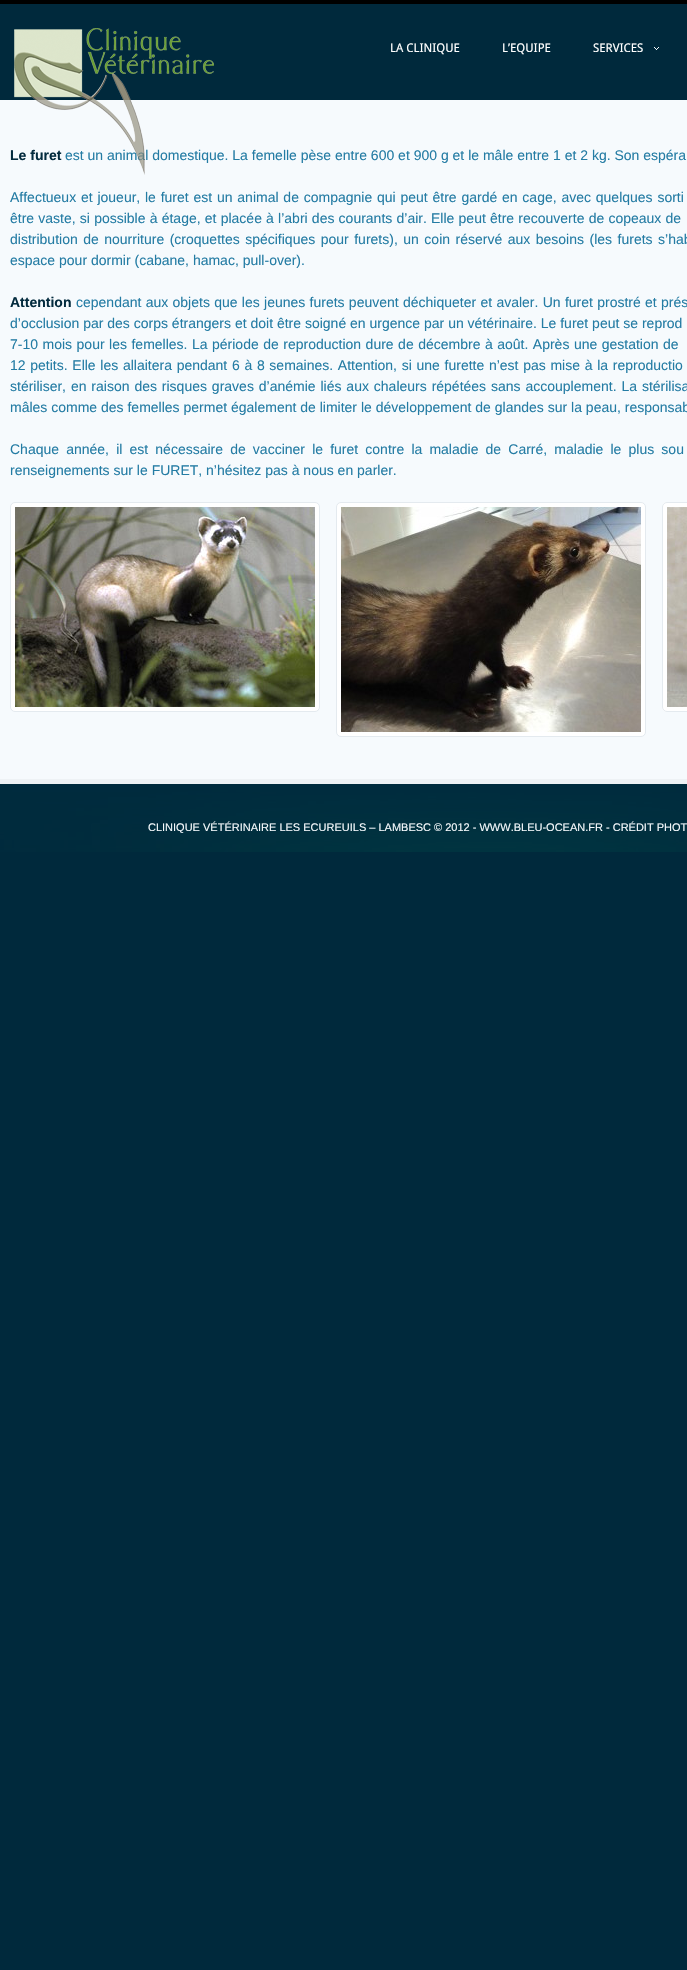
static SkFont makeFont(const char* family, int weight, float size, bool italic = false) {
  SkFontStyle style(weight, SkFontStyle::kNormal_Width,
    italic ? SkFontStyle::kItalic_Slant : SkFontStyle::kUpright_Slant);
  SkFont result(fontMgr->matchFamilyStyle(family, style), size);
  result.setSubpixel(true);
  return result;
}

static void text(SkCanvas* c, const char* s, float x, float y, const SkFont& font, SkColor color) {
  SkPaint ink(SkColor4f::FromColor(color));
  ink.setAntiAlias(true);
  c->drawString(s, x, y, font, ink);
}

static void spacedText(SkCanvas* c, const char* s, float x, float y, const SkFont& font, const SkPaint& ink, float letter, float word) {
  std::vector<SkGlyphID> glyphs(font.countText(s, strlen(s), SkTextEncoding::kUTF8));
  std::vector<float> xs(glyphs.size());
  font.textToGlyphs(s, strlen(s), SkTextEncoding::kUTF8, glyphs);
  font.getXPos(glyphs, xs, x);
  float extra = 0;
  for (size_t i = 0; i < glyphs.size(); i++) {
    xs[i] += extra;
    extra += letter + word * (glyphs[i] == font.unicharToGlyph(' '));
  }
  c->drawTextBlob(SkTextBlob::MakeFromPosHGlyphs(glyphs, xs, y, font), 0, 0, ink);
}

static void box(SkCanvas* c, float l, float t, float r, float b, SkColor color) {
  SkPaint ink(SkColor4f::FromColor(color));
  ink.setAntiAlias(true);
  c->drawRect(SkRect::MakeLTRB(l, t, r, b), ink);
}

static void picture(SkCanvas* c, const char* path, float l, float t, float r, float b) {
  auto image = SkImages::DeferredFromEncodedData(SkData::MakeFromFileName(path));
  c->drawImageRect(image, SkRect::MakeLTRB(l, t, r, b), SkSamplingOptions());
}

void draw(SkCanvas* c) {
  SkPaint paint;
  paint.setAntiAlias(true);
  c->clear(0xff00293c);
  box(c, 0, 0, 687, 4, 0xff000000);
  box(c, 0, 100, 687, 779, 0xfff6fafd);
  SkFont face1 = makeFont("Liberation Sans", 700, 14);
  text(c, "Le furet", 10, 160, face1, 0xff032b3e);
  SkFont face2 = makeFont("Liberation Sans", 400, 14);
  text(c, "est un animal domestique. La femelle pèse entre 600 et 900 g et le mâle entre 1 et 2 kg. Son espéra", 65, 160, face2, 0xff247ca4);
  picture(c, "img_01.png", 14, 28, 214, 175);
  SkFont face3 = makeFont("Droid Sans", 400, 12);
  text(c, "LA CLINIQUE", 390, 52, face3, 0xffffffff);
  text(c, "L’EQUIPE", 502, 52, face3, 0xffffffff);
  text(c, "SERVICES", 593, 52, face3, 0xffffffff);
  picture(c, "img_02.png", 654, 47, 659, 50);
  box(c, 0, 779, 687, 784, 0xffeef2f5);
  paint.setColor(0xff247ca4);
  spacedText(c, "Affectueux et joueur, le furet est un animal de compagnie qui peut être gardé en cage, avec quelques sorti", 10, 202, face2, paint, 0, 0.9f);
  spacedText(c, "être vaste, si possible à étage, et placée à l’abri des courants d’air. Elle peut être recouverte de copeaux de", 10, 223, face2, paint, 0, 0.3f);
  spacedText(c, "distribution de nourriture (croquettes spécifiques pour furets), un coin réservé aux besoins (les furets s’hab", 10, 244, face2, paint, 0, 1.6f);
  text(c, "espace pour dormir (cabane, hamac, pull-over).", 10, 265, face2, 0xff247ca4);
  text(c, "Attention", 10, 307, face1, 0xff032b3e);
  spacedText(c, "cependant aux objets que les jeunes furets peuvent déchiqueter et avaler. Un furet prostré et prés", 76, 307, face2, paint, 0, 0.4f);
  text(c, "d’occlusion par des corps étrangers et doit être soigné en urgence par un vétérinaire. Le furet peut se reprod", 10, 328, face2, 0xff247ca4);
  spacedText(c, "7-10 mois pour les femelles. La période de reproduction dure de décembre à août. Après une gestation de", 10, 349, face2, paint, 0, 0.6f);
  spacedText(c, "12 petits. Elle les allaitera pendant 6 à 8 semaines. Attention, si une furette n’est pas mise à la reproductio", 10, 370, face2, paint, 0, 0.8f);
  spacedText(c, "stériliser, en raison des risques graves d’anémie liés aux chaleurs répétées sans accouplement. La stérilisa", 10, 391, face2, paint, 0, 1);
  text(c, "mâles comme des femelles permet également de limiter le développement de glandes sur la peau, responsab", 10, 412, face2, 0xff247ca4);
  spacedText(c, "Chaque année, il est nécessaire de vacciner le furet contre la maladie de Carré, maladie le plus sou", 10, 454, face2, paint, 0, 3.25f);
  text(c, "renseignements sur le FURET, n’hésitez pas à nous en parler.", 10, 475, face2, 0xff247ca4);
  paint.setColor(0xffffffff);
  c->drawRoundRect(SkRect::MakeLTRB(10.5f, 502.5f, 319.5f, 711.5f), 4.5f, 4.5f, paint);
  paint.setStyle(SkPaint::kStroke_Style);
  paint.setStrokeWidth(1);
  paint.setColor(0xffe4eaef);
  c->drawRoundRect(SkRect::MakeLTRB(10.5f, 502.5f, 319.5f, 711.5f), 4.5f, 4.5f, paint);
  picture(c, "img_03.png", 15, 507, 315, 707);
  paint.setStyle(SkPaint::kFill_Style);
  paint.setColor(0xffffffff);
  c->drawRoundRect(SkRect::MakeLTRB(336.5f, 502.5f, 645.5f, 736.5f), 4.5f, 4.5f, paint);
  paint.setStyle(SkPaint::kStroke_Style);
  paint.setColor(0xffe4eaef);
  c->drawRoundRect(SkRect::MakeLTRB(336.5f, 502.5f, 645.5f, 736.5f), 4.5f, 4.5f, paint);
  picture(c, "img_04.png", 341, 507, 641, 732);
  paint.setStyle(SkPaint::kFill_Style);
  paint.setColor(0xffffffff);
  c->drawPath(SkPathBuilder().moveTo(667, 502).lineTo(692, 502).lineTo(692, 712).lineTo(667, 712).cubicTo(664, 712, 662, 710, 662, 707).lineTo(662, 507).cubicTo(662, 504, 664, 502, 667, 502).close().detach(), paint);
  paint.setStyle(SkPaint::kStroke_Style);
  paint.setColor(0xffe4eaef);
  c->drawRoundRect(SkRect::MakeLTRB(662.5f, 502.5f, 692.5f, 711.5f), 4.5f, 4.5f, paint);
  picture(c, "img_05.png", 667, 507, 687, 707);
  picture(c, "img_06.png", 0, 784, 687, 852);
  SkFont face4 = makeFont("Liberation Sans", 400, 11);
  text(c, "CLINIQUE VÉTÉRINAIRE LES ECUREUILS – LAMBESC © 2012 - WWW.BLEU-OCEAN.FR - CRÉDIT PHOT", 148, 831, face4, 0xfff6fafd);
}
